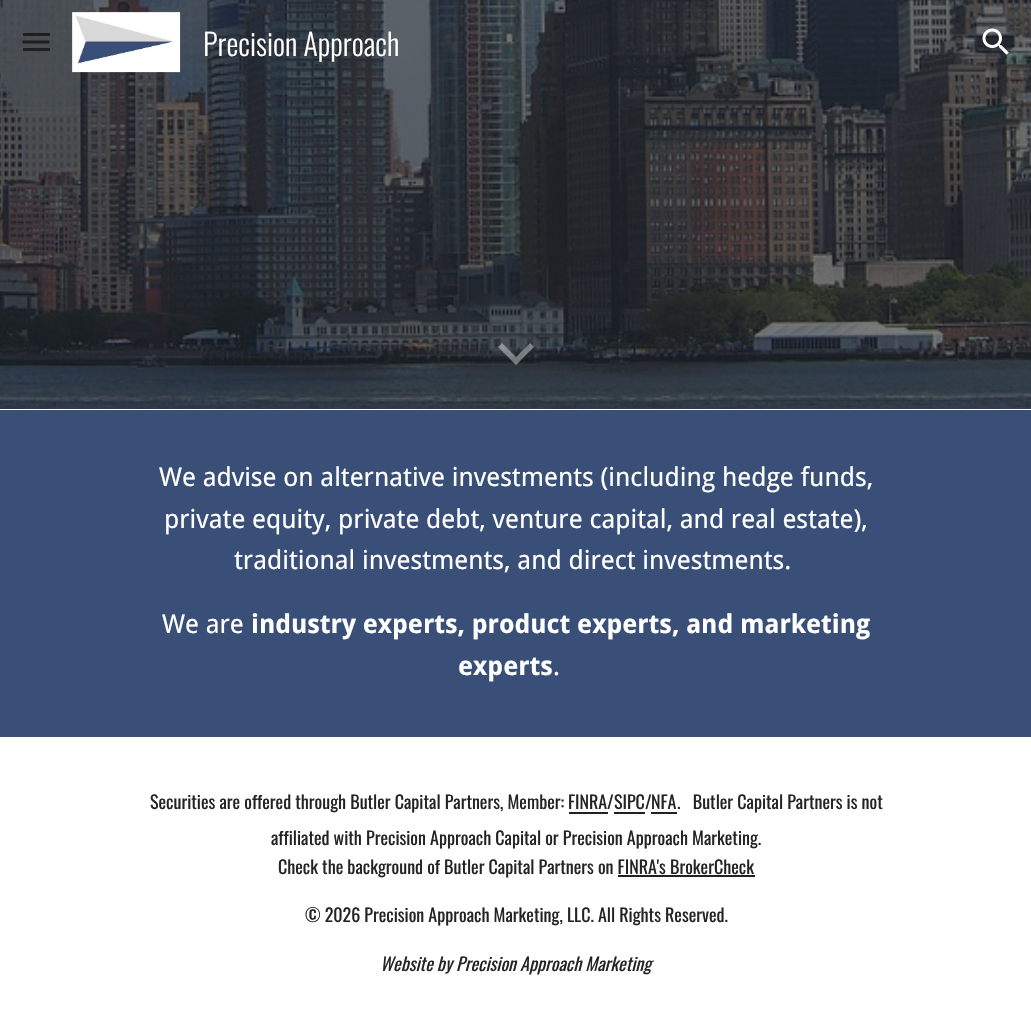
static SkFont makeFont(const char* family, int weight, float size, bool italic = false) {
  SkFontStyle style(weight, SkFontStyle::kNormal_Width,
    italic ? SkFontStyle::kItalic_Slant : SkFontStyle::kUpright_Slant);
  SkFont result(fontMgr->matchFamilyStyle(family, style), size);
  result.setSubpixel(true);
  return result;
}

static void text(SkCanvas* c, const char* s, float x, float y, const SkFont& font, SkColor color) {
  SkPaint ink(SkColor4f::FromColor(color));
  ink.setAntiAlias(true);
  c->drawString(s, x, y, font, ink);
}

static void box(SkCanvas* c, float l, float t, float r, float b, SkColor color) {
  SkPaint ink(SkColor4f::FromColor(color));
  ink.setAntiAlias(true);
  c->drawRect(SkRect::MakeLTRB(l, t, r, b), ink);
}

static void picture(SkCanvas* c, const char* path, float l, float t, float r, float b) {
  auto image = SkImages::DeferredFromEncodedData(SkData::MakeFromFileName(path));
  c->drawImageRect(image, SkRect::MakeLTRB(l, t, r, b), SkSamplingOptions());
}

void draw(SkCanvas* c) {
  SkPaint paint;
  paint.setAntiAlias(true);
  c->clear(0xffffffff);
  picture(c, "img_03.png", 0, 0, 1031, 409);
  box(c, 23, 33, 50, 36, 0xff1f1f1f);
  paint.setStyle(SkPaint::kStroke_Style);
  paint.setStrokeWidth(3);
  paint.setColor(0xff1f1f1f);
  c->drawPath(SkPathBuilder().moveTo(22.5f, 42).lineTo(49.5f, 42).detach(), paint);
  box(c, 23, 48, 50, 51, 0xff1f1f1f);
  picture(c, "img_01.png", 72, 12, 181, 73);
  SkFont face1 = makeFont("Oswald", 300, 30);
  text(c, "Precision Approach", 203, 56, face1, 0xffffffff);
  picture(c, "img_02.png", 982, 28, 1009, 55);
  paint.setStyle(SkPaint::kFill_Style);
  paint.setColor(0x66ffffff);
  c->drawPath(SkPathBuilder().moveTo(502, 343).lineTo(516, 357).lineTo(530, 343).lineTo(534, 347).lineTo(516, 365).lineTo(498, 347).close().detach(), paint);
  box(c, 0, 410, 1031, 737, 0xff3a4f77);
  SkFont face2 = makeFont("Droid Sans", 400, 26);
  text(c, "We advise on alternative investments (including hedge funds,", 159, 486, face2, 0xffffffff);
  text(c, "private equity, private debt, venture capital, and real estate),", 164, 528, face2, 0xffffffff);
  text(c, "traditional investments, and direct investments.", 234, 569, face2, 0xffffffff);
  text(c, "We are", 162, 633, face2, 0xffffffff);
  SkFont face3 = makeFont("Droid Sans", 700, 26);
  text(c, "industry experts, product experts, and marketing", 251, 633, face3, 0xffffffff);
  text(c, "experts", 458, 675, face3, 0xffffffff);
  text(c, ".", 553, 675, face2, 0xffffffff);
  SkFont face4 = makeFont("Oswald", 400, 18);
  text(c, "Securities are offered through Butler Capital Partners, Member:", 150, 809, face4, 0xff242424);
  text(c, "FINRA", 568, 809, face4, 0xff242424);
  box(c, 569, 812, 608, 814, 0xff212121);
  text(c, "/", 607, 809, face4, 0xff242424);
  text(c, "SIPC", 614, 809, face4, 0xff242424);
  box(c, 614, 812, 645, 814, 0xff212121);
  text(c, "/", 645, 809, face4, 0xff242424);
  text(c, "NFA", 651, 809, face4, 0xff242424);
  box(c, 651, 812, 677, 814, 0xff212121);
  text(c, ".   Butler Capital Partners is not", 677, 809, face4, 0xff242424);
  text(c, "affiliated with Precision Approach Capital or Precision Approach Marketing.", 271, 845, face4, 0xff242424);
  text(c, "Check the background of Butler Capital Partners on FINRA's BrokerCheck", 278, 874, face4, 0xff242424);
  box(c, 618, 875, 755, 877, 0xff212121);
  text(c, "© 2026 Precision Approach Marketing, LLC. All Rights Reserved.", 305, 922, face4, 0xff242424);
  SkFont face5 = makeFont("Oswald", 400, 18, true);
  text(c, "Website by Precision Approach Marketing", 380, 971, face5, 0xff242424);
}
